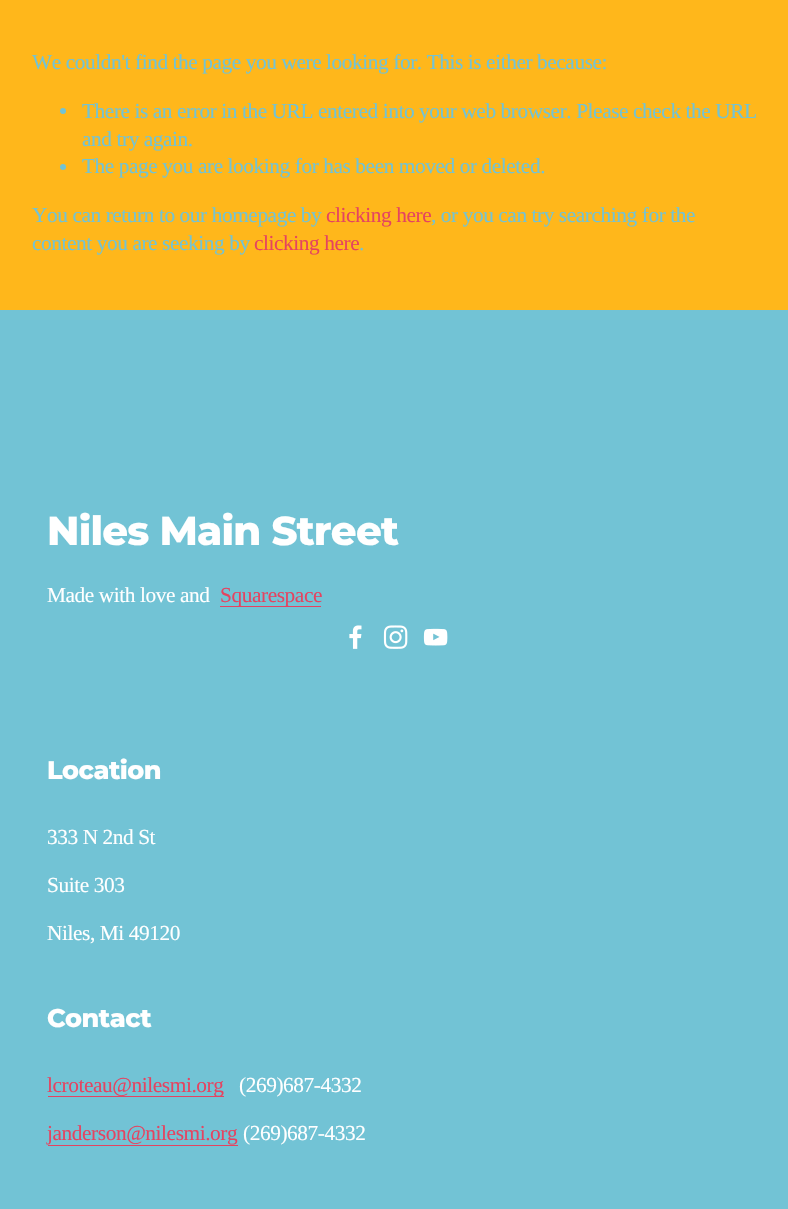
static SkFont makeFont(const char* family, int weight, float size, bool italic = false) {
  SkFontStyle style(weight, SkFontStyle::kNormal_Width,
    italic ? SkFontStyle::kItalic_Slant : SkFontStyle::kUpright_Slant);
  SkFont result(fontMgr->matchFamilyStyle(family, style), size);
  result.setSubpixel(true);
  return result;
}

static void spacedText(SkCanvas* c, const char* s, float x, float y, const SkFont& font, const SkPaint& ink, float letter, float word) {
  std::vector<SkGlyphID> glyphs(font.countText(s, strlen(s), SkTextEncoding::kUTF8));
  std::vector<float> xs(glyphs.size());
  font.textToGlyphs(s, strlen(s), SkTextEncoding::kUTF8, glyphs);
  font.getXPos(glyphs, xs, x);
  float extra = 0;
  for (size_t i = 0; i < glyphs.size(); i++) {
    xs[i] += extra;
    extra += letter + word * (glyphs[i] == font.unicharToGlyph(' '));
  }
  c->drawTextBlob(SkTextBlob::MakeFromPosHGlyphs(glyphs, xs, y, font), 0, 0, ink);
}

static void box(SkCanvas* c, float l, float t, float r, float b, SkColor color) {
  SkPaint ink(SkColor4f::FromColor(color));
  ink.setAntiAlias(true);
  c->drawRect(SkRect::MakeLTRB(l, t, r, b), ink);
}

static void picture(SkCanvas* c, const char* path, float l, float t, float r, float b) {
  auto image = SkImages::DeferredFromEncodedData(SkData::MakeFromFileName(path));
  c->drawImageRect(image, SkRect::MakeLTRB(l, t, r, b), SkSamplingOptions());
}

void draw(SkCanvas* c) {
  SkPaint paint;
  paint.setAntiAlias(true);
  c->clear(0xffffb71b);
  SkFont face1 = makeFont("Liberation Serif", 400, 21.35f);
  paint.setColor(0xff72c3d5);
  spacedText(c, "We couldn't find the page you were looking for. This is either because:", 32, 69, face1, paint, -0.43f, 0);
  c->drawCircle(63, 111, 3, paint);
  spacedText(c, "There is an error in the URL entered into your web browser. Please check the URL", 82, 118, face1, paint, -0.43f, 0);
  spacedText(c, "and try again.", 82, 146, face1, paint, -0.43f, 0);
  c->drawCircle(63, 167, 3, paint);
  spacedText(c, "The page you are looking for has been moved or deleted.", 82, 173, face1, paint, -0.43f, 0);
  spacedText(c, "You can return to our homepage by", 32, 222, face1, paint, -0.43f, 0);
  paint.setColor(0xffe54360);
  spacedText(c, "clicking here", 326, 222, face1, paint, -0.43f, 0);
  paint.setColor(0xff72c3d5);
  spacedText(c, ", or you can try searching for the", 431, 222, face1, paint, -0.43f, 0);
  spacedText(c, "content you are seeking by", 32, 250, face1, paint, -0.43f, 0);
  paint.setColor(0xffe54360);
  spacedText(c, "clicking here", 254, 250, face1, paint, -0.43f, 0);
  paint.setColor(0xff72c3d5);
  spacedText(c, ".", 359, 250, face1, paint, -0.43f, 0);
  box(c, 0, 310, 788, 1209, 0xff72c3d5);
  SkFont face2 = makeFont("Montserrat", 800, 40.25f);
  paint.setColor(0xffffffff);
  spacedText(c, "Niles Main Street", 47, 545, face2, paint, -0.8f, 0);
  spacedText(c, "Made with love and", 47, 602, face1, paint, -0.43f, 0);
  box(c, 220, 606, 321, 607, 0xffe54360);
  paint.setColor(0xffe54360);
  spacedText(c, "Squarespace", 220, 602, face1, paint, -0.43f, 0);
  picture(c, "img_01.png", 349, 625, 362, 649);
  picture(c, "img_02.png", 383, 625, 408, 649);
  picture(c, "img_03.png", 423, 628, 448, 646);
  SkFont face3 = makeFont("Montserrat", 800, 25.5f);
  paint.setColor(0xffffffff);
  spacedText(c, "Location", 47, 779, face3, paint, -0.5f, 0);
  spacedText(c, "333 N 2nd St", 47, 844, face1, paint, -0.43f, 0);
  spacedText(c, "Suite 303", 47, 892, face1, paint, -0.43f, 0);
  spacedText(c, "Niles, Mi 49120", 47, 940, face1, paint, -0.43f, 0);
  spacedText(c, "Contact", 47, 1027, face3, paint, -0.5f, 0);
  box(c, 48, 1096, 224, 1097, 0xffe54360);
  paint.setColor(0xffe54360);
  spacedText(c, "lcroteau@nilesmi.org", 47, 1092, face1, paint, -0.43f, 0);
  paint.setColor(0xffffffff);
  spacedText(c, "(269)687-4332", 239, 1092, face1, paint, -0.43f, 0);
  paint.setColor(0xffe54360);
  spacedText(c, "janderson@nilesmi.org", 47, 1140, face1, paint, -0.43f, 0);
  box(c, 48, 1145, 238, 1146, 0xffe54360);
  paint.setColor(0xffffffff);
  spacedText(c, "(269)687-4332", 243, 1140, face1, paint, -0.43f, 0);
}
